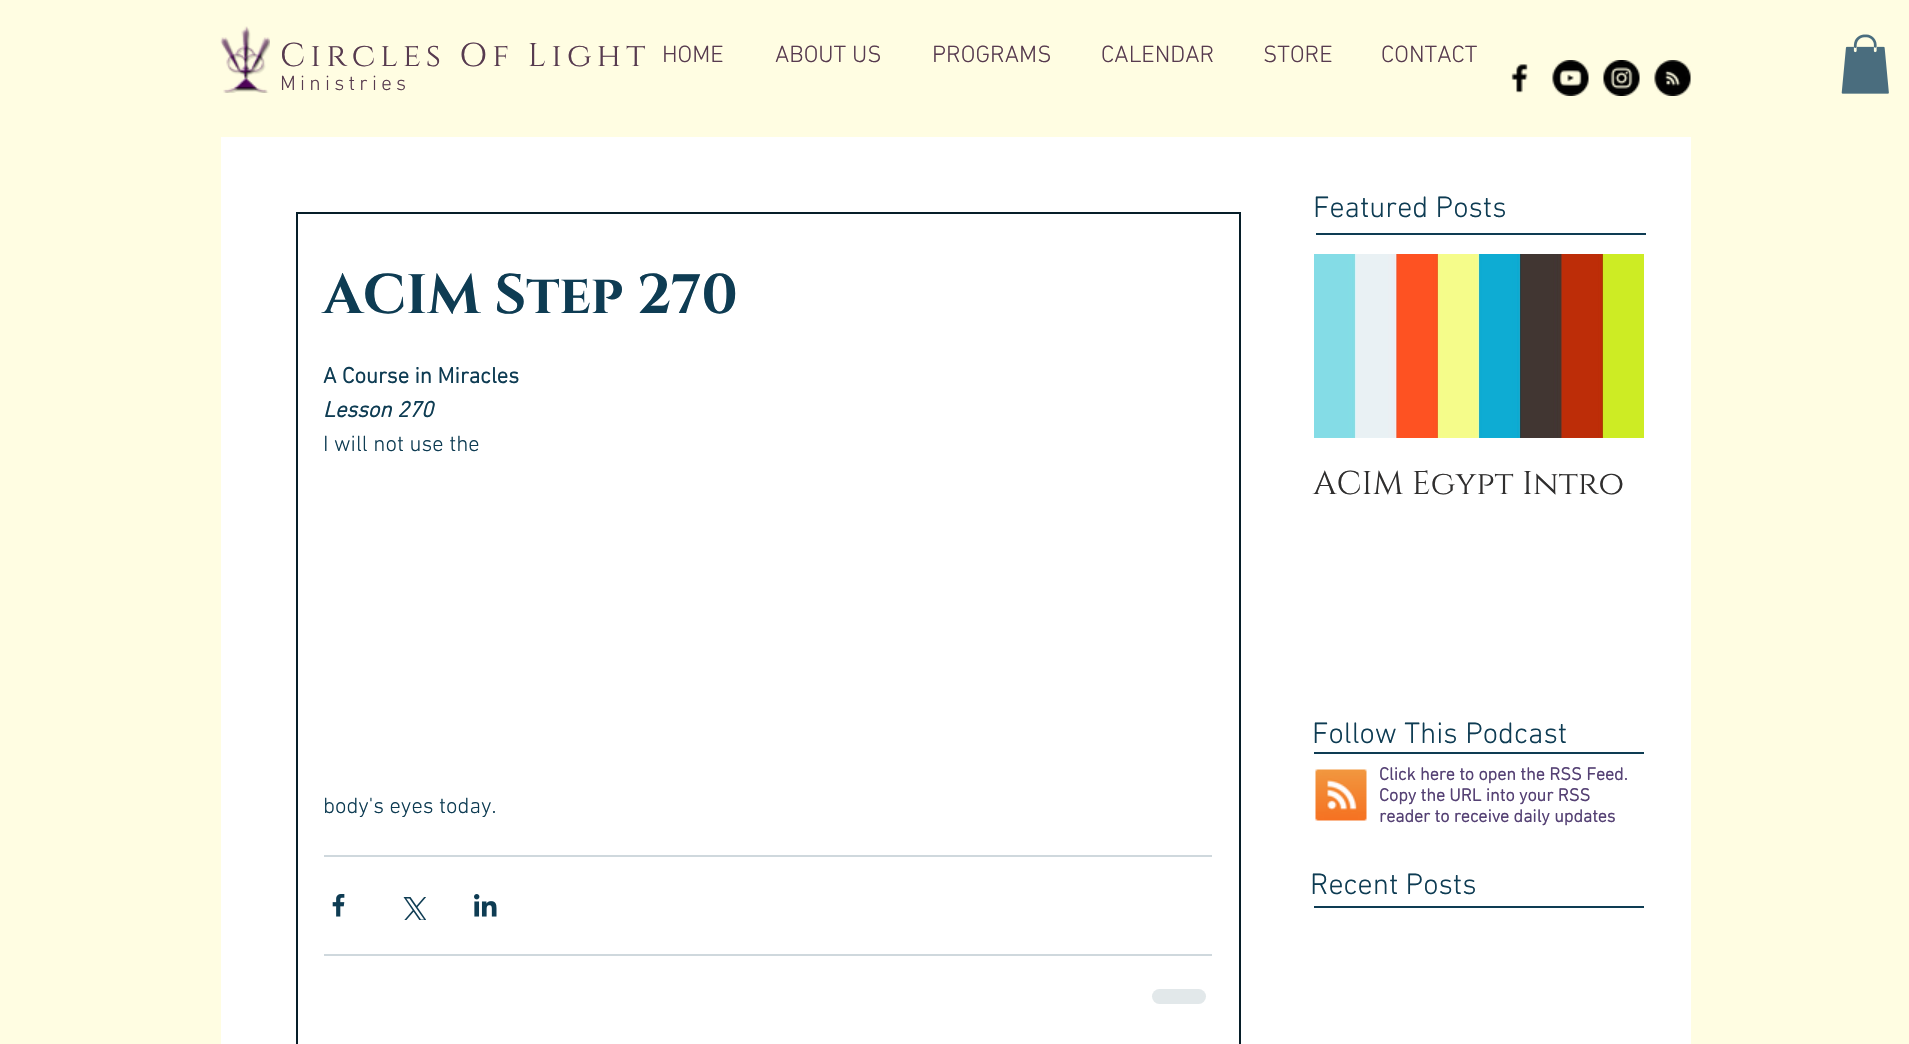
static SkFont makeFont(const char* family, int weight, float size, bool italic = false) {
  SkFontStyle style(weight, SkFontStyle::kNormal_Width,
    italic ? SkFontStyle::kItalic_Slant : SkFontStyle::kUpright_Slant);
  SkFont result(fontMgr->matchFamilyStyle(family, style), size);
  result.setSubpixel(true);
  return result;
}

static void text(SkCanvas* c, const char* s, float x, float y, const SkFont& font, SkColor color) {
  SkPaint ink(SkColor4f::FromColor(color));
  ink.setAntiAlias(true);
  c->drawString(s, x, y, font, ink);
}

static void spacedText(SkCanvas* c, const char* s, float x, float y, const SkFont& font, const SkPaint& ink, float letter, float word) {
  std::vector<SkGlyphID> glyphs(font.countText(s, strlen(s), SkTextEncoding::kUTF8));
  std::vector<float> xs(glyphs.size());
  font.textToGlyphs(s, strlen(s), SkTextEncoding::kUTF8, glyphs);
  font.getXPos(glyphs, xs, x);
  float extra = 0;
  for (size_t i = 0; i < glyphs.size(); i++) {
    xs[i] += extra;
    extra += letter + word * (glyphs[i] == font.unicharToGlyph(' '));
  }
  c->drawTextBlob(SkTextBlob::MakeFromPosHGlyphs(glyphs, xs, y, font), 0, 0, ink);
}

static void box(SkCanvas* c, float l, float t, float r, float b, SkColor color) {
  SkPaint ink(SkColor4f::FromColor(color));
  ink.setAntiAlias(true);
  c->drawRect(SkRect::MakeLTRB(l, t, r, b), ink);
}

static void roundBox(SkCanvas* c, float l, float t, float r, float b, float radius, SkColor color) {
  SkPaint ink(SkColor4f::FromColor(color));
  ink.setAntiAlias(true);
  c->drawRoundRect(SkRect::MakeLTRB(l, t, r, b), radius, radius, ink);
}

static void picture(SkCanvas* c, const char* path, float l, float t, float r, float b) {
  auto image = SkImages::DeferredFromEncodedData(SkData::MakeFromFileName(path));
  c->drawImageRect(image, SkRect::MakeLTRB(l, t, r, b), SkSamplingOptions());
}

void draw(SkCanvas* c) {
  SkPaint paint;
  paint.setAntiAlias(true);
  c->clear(0xfffffde2);
  picture(c, "img_01.png", 220, 26, 270, 93);
  SkFont face1 = makeFont("Cinzel", 400, 33);
  paint.setColor(0xff573b4f);
  spacedText(c, "Circles Of Light", 280, 66, face1, paint, 5, 0);
  SkFont face2 = makeFont("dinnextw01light", 300, 21);
  spacedText(c, "Ministries", 280, 90, face2, paint, 4.25f, 0);
  SkFont face3 = makeFont("dinnextw01light", 300, 24);
  text(c, "HOME", 662, 62, face3, 0xff573b4f);
  text(c, "ABOUT US", 775, 62, face3, 0xff573b4f);
  text(c, "PROGRAMS", 932, 62, face3, 0xff573b4f);
  text(c, "CALENDAR", 1101, 62, face3, 0xff573b4f);
  text(c, "STORE", 1263, 62, face3, 0xff573b4f);
  text(c, "CONTACT", 1381, 62, face3, 0xff573b4f);
  picture(c, "img_02.png", 1841, 34, 1889, 94);
  picture(c, "img_03.png", 1511, 64, 1528, 93);
  picture(c, "img_04.png", 1552, 60, 1589, 96);
  picture(c, "img_05.png", 1603, 60, 1640, 96);
  picture(c, "img_06.png", 1654, 60, 1691, 96);
  box(c, 221, 137, 1691, 1044, 0xffffffff);
  SkFont face4 = makeFont("dinnextw01light", 300, 30);
  text(c, "Featured Posts", 1313, 217, face4, 0xff0e3c53);
  box(c, 1316, 233, 1646, 235, 0xff0e3c53);
  paint.setStyle(SkPaint::kStroke_Style);
  paint.setStrokeWidth(2);
  paint.setColor(0xff071e29);
  c->drawRect(SkRect::MakeLTRB(297, 213, 1240, 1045), paint);
  SkFont face5 = makeFont("Cinzel", 700, 55.5f);
  text(c, "ACIM Step 270", 323, 313, face5, 0xff0e3c53);
  SkFont face6 = makeFont("dinnextw01light", 700, 22.5f);
  text(c, "A Course in Miracles", 323, 383, face6, 0xff0e3c53);
  SkFont face7 = makeFont("dinnextw01light", 700, 22.5f, true);
  text(c, "Lesson 270", 323, 417, face7, 0xff0e3c53);
  SkFont face8 = makeFont("dinnextw01light", 300, 22.5f);
  text(c, "I will not use the", 323, 451, face8, 0xff0e3c53);
  text(c, "body's eyes today.", 323, 813, face8, 0xff0e3c53);
  box(c, 324, 855, 1212, 857, 0xffcfd8dd);
  picture(c, "img_07.png", 332, 894, 345, 917);
  picture(c, "img_08.png", 403, 897, 426, 920);
  picture(c, "img_09.png", 474, 894, 497, 917);
  box(c, 324, 954, 1212, 956, 0xffcfd8dd);
  roundBox(c, 1152, 989, 1206, 1004, 7.5f, 0xffe2e8ea);
  picture(c, "img_10.png", 1314, 254, 1644, 438);
  picture(c, "img_11.png", 1314, 437, 1644, 438);
  text(c, "ACIM Egypt Intro", 1313, 494, face1, 0xff2f2e2e);
  text(c, "Follow This Podcast", 1312, 743, face4, 0xff0e3c53);
  box(c, 1314, 752, 1644, 754, 0xff0e3c53);
  picture(c, "img_12.png", 1315, 769, 1367, 821);
  SkFont face9 = makeFont("dinnextw01light", 700, 18);
  text(c, "Click here to open the RSS Feed.", 1379, 780, face9, 0xff554174);
  text(c, "Copy the URL into your RSS", 1379, 801, face9, 0xff554174);
  text(c, "reader to receive daily updates", 1379, 822, face9, 0xff554174);
  text(c, "Recent Posts", 1310, 894, face4, 0xff0e3c53);
  box(c, 1314, 906, 1644, 908, 0xff0e3c53);
}
